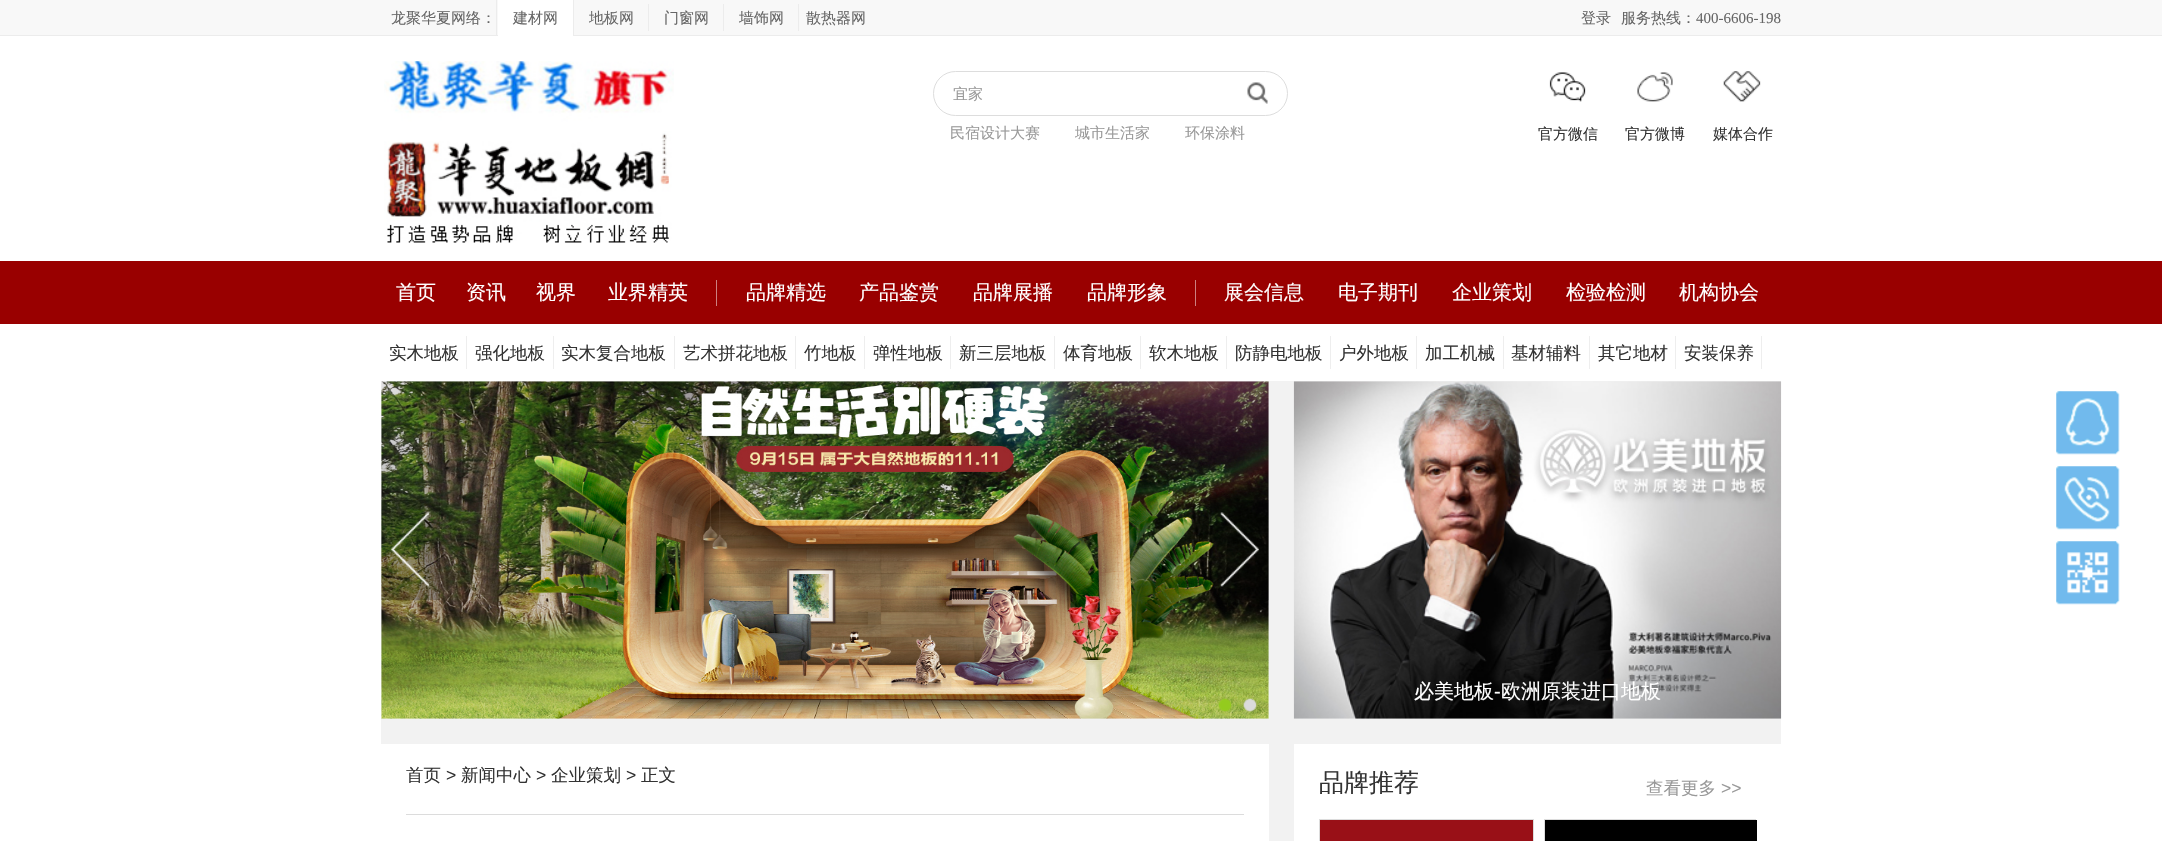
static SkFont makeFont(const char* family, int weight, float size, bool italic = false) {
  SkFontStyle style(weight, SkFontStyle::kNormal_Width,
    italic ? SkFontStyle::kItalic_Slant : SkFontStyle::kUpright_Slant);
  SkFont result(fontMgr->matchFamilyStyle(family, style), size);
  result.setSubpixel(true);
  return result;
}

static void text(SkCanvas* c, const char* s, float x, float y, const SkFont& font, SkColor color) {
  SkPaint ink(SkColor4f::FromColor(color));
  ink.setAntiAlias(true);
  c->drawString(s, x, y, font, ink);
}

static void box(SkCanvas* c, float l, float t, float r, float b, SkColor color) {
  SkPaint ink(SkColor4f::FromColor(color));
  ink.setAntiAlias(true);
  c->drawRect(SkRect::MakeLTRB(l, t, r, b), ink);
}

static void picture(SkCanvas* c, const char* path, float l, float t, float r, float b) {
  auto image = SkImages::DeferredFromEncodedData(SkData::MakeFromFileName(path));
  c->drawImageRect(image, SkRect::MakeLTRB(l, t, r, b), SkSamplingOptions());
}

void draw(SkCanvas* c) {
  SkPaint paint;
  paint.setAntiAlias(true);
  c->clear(0xffffffff);
  box(c, 0, 0, 2162, 35, 0xfff8f8f8);
  box(c, 0, 35, 2162, 36, 0xffececec);
  SkFont face1 = makeFont("WenQuanYi Zen Hei", 500, 15);
  text(c, "龙聚华夏网络：", 391, 23, face1, 0xff666666);
  box(c, 498, 0, 573, 36, 0xffffffff);
  box(c, 573, 0, 574, 36, 0xffececec);
  box(c, 496, 0, 497, 36, 0xffececec);
  text(c, "建材网", 513, 23, face1, 0xff666666);
  text(c, "地板网", 589, 23, face1, 0xff666666);
  box(c, 648, 4, 649, 31, 0xffececec);
  text(c, "门窗网", 664, 23, face1, 0xff666666);
  box(c, 723, 4, 724, 31, 0xffececec);
  text(c, "墙饰网", 739, 23, face1, 0xff666666);
  box(c, 798, 4, 799, 31, 0xffececec);
  text(c, "散热器网", 806, 23, face1, 0xff666666);
  text(c, "登录", 1581, 23, face1, 0xff666666);
  text(c, "服务热线：", 1621, 23, face1, 0xff666666);
  SkFont face2 = makeFont("Liberation Serif", 400, 15);
  text(c, "400-6606-198", 1696, 23, face2, 0xff666666);
  picture(c, "img_01.png", 384, 61, 674, 243);
  paint.setStyle(SkPaint::kStroke_Style);
  paint.setStrokeWidth(1);
  paint.setColor(0xffdddddd);
  c->drawRoundRect(SkRect::MakeLTRB(933.5f, 71.5f, 1287.5f, 115.5f), 22, 22, paint);
  text(c, "宜家", 953, 99, face1, 0xff999999);
  picture(c, "img_02.png", 1247, 82, 1268, 104);
  text(c, "民宿设计大赛", 950, 138, face1, 0xff999999);
  text(c, "城市生活家", 1075, 138, face1, 0xff999999);
  text(c, "环保涂料", 1185, 138, face1, 0xff999999);
  picture(c, "img_03.png", 1549, 72, 1586, 102);
  text(c, "官方微信", 1538, 139, face1, 0xff333333);
  picture(c, "img_04.png", 1637, 72, 1673, 102);
  text(c, "官方微博", 1625, 139, face1, 0xff333333);
  picture(c, "img_05.png", 1723, 71, 1761, 102);
  text(c, "媒体合作", 1713, 139, face1, 0xff333333);
  box(c, 0, 261, 2162, 324, 0xff990000);
  SkFont face3 = makeFont("WenQuanYi Zen Hei", 500, 20);
  text(c, "首页", 396, 299, face3, 0xffffffff);
  text(c, "资讯", 466, 299, face3, 0xffffffff);
  text(c, "视界", 536, 299, face3, 0xffffffff);
  text(c, "业界精英", 608, 299, face3, 0xffffffff);
  box(c, 716, 280, 717, 306, 0xffcc8080);
  text(c, "品牌精选", 746, 299, face3, 0xffffffff);
  text(c, "产品鉴赏", 859, 299, face3, 0xffffffff);
  text(c, "品牌展播", 973, 299, face3, 0xffffffff);
  text(c, "品牌形象", 1087, 299, face3, 0xffffffff);
  box(c, 1195, 280, 1196, 306, 0xffcc8080);
  text(c, "展会信息", 1224, 299, face3, 0xffffffff);
  text(c, "电子期刊", 1338, 299, face3, 0xffffffff);
  text(c, "企业策划", 1452, 299, face3, 0xffffffff);
  text(c, "检验检测", 1566, 299, face3, 0xffffffff);
  text(c, "机构协会", 1679, 299, face3, 0xffffffff);
  SkFont face4 = makeFont("WenQuanYi Zen Hei", 500, 17.5f);
  text(c, "实木地板", 389, 359, face4, 0xff333333);
  box(c, 466, 336, 467, 369, 0xffeeeeee);
  text(c, "强化地板", 475, 359, face4, 0xff333333);
  box(c, 553, 336, 554, 369, 0xffeeeeee);
  text(c, "实木复合地板", 561, 359, face4, 0xff333333);
  box(c, 674, 336, 675, 369, 0xffeeeeee);
  text(c, "艺术拼花地板", 683, 359, face4, 0xff333333);
  box(c, 795, 336, 796, 369, 0xffeeeeee);
  text(c, "竹地板", 804, 359, face4, 0xff333333);
  box(c, 864, 336, 865, 369, 0xffeeeeee);
  text(c, "弹性地板", 873, 359, face4, 0xff333333);
  box(c, 950, 336, 951, 369, 0xffeeeeee);
  text(c, "新三层地板", 959, 359, face4, 0xff333333);
  box(c, 1054, 336, 1055, 369, 0xffeeeeee);
  text(c, "体育地板", 1063, 359, face4, 0xff333333);
  box(c, 1140, 336, 1141, 369, 0xffeeeeee);
  text(c, "软木地板", 1149, 359, face4, 0xff333333);
  box(c, 1226, 336, 1227, 369, 0xffeeeeee);
  text(c, "防静电地板", 1235, 359, face4, 0xff333333);
  box(c, 1330, 336, 1331, 369, 0xffeeeeee);
  text(c, "户外地板", 1339, 359, face4, 0xff333333);
  box(c, 1416, 336, 1417, 369, 0xffeeeeee);
  text(c, "加工机械", 1425, 359, face4, 0xff333333);
  box(c, 1503, 336, 1504, 369, 0xffeeeeee);
  text(c, "基材辅料", 1511, 359, face4, 0xff333333);
  box(c, 1589, 336, 1590, 369, 0xffeeeeee);
  text(c, "其它地材", 1598, 359, face4, 0xff333333);
  box(c, 1675, 336, 1676, 369, 0xffeeeeee);
  text(c, "安装保养", 1684, 359, face4, 0xff333333);
  box(c, 1761, 336, 1762, 369, 0xffeeeeee);
  picture(c, "img_06.png", 2056, 391, 2120, 455);
  picture(c, "img_07.png", 2056, 466, 2120, 530);
  picture(c, "img_08.png", 2056, 541, 2120, 605);
  box(c, 381, 381, 1781, 841, 0xfff2f2f2);
  picture(c, "img_09.png", 381, 381, 1269, 719);
  picture(c, "img_10.png", 381, 500, 440, 600);
  picture(c, "img_11.png", 1210, 500, 1269, 600);
  picture(c, "img_12.png", 1218, 698, 1232, 712);
  picture(c, "img_13.png", 1243, 698, 1257, 712);
  picture(c, "img_14.png", 1293, 381, 1782, 719);
  text(c, "必美地板", 1414, 698, face3, 0xffffffff);
  SkFont face5 = makeFont("Liberation Sans", 400, 20);
  text(c, "-", 1494, 698, face5, 0xffffffff);
  text(c, "欧洲原装进口地板", 1501, 698, face3, 0xffffffff);
  box(c, 381, 744, 1269, 841, 0xffffffff);
  box(c, 406, 814, 1244, 815, 0xffdcdcdc);
  text(c, "首页", 406, 781, face4, 0xff333333);
  SkFont face6 = makeFont("Liberation Sans", 400, 17.5f);
  text(c, ">", 446, 781, face6, 0xff333333);
  text(c, "新闻中心", 461, 781, face4, 0xff333333);
  text(c, ">", 536, 781, face6, 0xff333333);
  text(c, "企业策划", 551, 781, face4, 0xff333333);
  text(c, ">", 626, 781, face6, 0xff333333);
  text(c, "正文", 641, 781, face4, 0xff333333);
  box(c, 1294, 744, 1781, 841, 0xffffffff);
  SkFont face7 = makeFont("WenQuanYi Zen Hei", 500, 25);
  text(c, "品牌推荐", 1319, 791, face7, 0xff333333);
  text(c, "查看更多", 1646, 794, face4, 0xff999999);
  text(c, ">>", 1721, 794, face6, 0xff999999);
  paint.setColor(0xffdcdcdc);
  c->drawRect(SkRect::MakeLTRB(1319.5f, 819.5f, 1533.5f, 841.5f), paint);
  box(c, 1320, 820, 1533, 841, 0xff991017);
  c->save();
  c->clipRect(SkRect::MakeLTRB(1319, 769, 1756, 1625));
  c->drawRect(SkRect::MakeLTRB(1544.5f, 819.5f, 1758.5f, 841.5f), paint);
  c->restore();
  box(c, 1545, 820, 1757, 841, 0xff000000);
}
